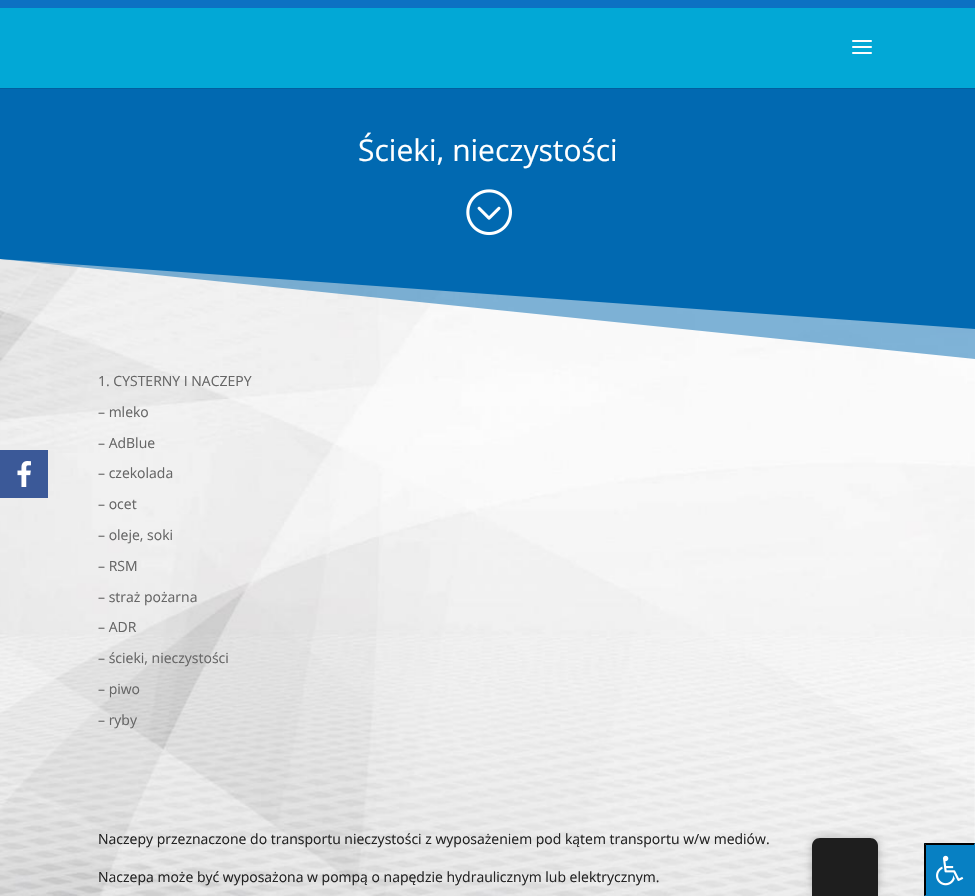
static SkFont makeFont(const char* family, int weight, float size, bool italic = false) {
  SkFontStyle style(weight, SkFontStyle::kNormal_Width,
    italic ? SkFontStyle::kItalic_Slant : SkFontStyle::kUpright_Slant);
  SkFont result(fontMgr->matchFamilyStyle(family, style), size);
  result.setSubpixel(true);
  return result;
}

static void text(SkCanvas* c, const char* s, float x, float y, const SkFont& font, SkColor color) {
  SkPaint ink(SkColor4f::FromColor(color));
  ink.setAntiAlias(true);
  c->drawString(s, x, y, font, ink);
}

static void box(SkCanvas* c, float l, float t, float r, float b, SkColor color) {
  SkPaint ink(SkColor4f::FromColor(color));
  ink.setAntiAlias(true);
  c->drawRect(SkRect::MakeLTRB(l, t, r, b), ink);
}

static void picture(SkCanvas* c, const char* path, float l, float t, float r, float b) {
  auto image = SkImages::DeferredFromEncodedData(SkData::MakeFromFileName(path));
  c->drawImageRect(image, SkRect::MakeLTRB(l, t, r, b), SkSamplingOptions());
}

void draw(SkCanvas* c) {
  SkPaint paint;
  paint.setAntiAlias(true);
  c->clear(0xffffffff);
  picture(c, "img_04.png", 0, 259, 975, 896);
  box(c, 0, 450, 48, 498, 0xff3b5998);
  picture(c, "img_01.png", 17, 461, 31, 487);
  box(c, 0, 88, 975, 89, 0xff015f9f);
  box(c, 0, 8, 975, 88, 0xff02a8d6);
  box(c, 0, 0, 975, 8, 0xff0c71c3);
  picture(c, "img_02.png", 852, 40, 872, 54);
  box(c, 0, 89, 975, 259, 0xff0169b1);
  SkFont face1 = makeFont("Open Sans", 400, 30);
  text(c, "Ścieki, nieczystości", 358, 161, face1, 0xffffffff);
  picture(c, "img_03.png", 466, 189, 512, 236);
  paint.setColor(0x800169b1);
  c->drawPath(SkPathBuilder().moveTo(975, 359).lineTo(975, 259).lineTo(0, 259).close().detach(), paint);
  paint.setColor(0xff0169b1);
  c->drawPath(SkPathBuilder().moveTo(975, 329).lineTo(975, 259).lineTo(0, 259).close().detach(), paint);
  SkFont face2 = makeFont("Open Sans", 400, 14);
  text(c, "1. CYSTERNY I NACZEPY", 98, 386, face2, 0xff666666);
  text(c, "– mleko", 98, 417, face2, 0xff666666);
  text(c, "– AdBlue", 98, 448, face2, 0xff666666);
  text(c, "– czekolada", 98, 478, face2, 0xff666666);
  text(c, "– ocet", 98, 509, face2, 0xff666666);
  text(c, "– oleje, soki", 98, 540, face2, 0xff666666);
  text(c, "– RSM", 98, 571, face2, 0xff666666);
  text(c, "– straż pożarna", 98, 602, face2, 0xff666666);
  text(c, "– ADR", 98, 632, face2, 0xff666666);
  text(c, "– ścieki, nieczystości", 98, 663, face2, 0xff666666);
  text(c, "– piwo", 98, 694, face2, 0xff666666);
  text(c, "– ryby", 98, 725, face2, 0xff666666);
  text(c, "Naczepy przeznaczone do transportu nieczystości z wyposażeniem pod kątem transportu w/w mediów.", 98, 844, face2, 0xff232323);
  text(c, "Naczepa może być wyposażona w pompą o napędzie hydraulicznym lub elektrycznym.", 98, 882, face2, 0xff232323);
  paint.setColor(0x40000000);
  paint.setMaskFilter(SkMaskFilter::MakeBlur(kNormal_SkBlurStyle, 4));
  c->drawRoundRect(SkRect::MakeLTRB(812, 838, 878, 896), 8, 8, paint);
  paint.setMaskFilter(nullptr);
  paint.setColor(0xff1e1e1e);
  c->drawPath(SkPathBuilder().moveTo(820, 838).lineTo(870, 838).cubicTo(874.5f, 838, 878, 841.5f, 878, 846).lineTo(878, 896).lineTo(812, 896).lineTo(812, 846).cubicTo(812, 841.5f, 815.5f, 838, 820, 838).close().detach(), paint);
  box(c, 924, 843, 975, 896, 0xff0780c3);
  paint.setColor(0xff000000);
  c->drawPath(SkPathBuilder().moveTo(924, 843).lineTo(975, 843).lineTo(974, 845).lineTo(926, 845).close().detach(), paint);
  paint.setColor(0xff0780c3);
  c->drawPath(SkPathBuilder().moveTo(975, 843).lineTo(975, 896).lineTo(974, 895).lineTo(974, 845).close().detach(), paint);
  paint.setColor(0xff000000);
  c->drawPath(SkPathBuilder().moveTo(924, 896).lineTo(924, 843).lineTo(926, 845).lineTo(926, 895).close().detach(), paint);
  picture(c, "img_05.png", 936, 855, 964, 886);
}
